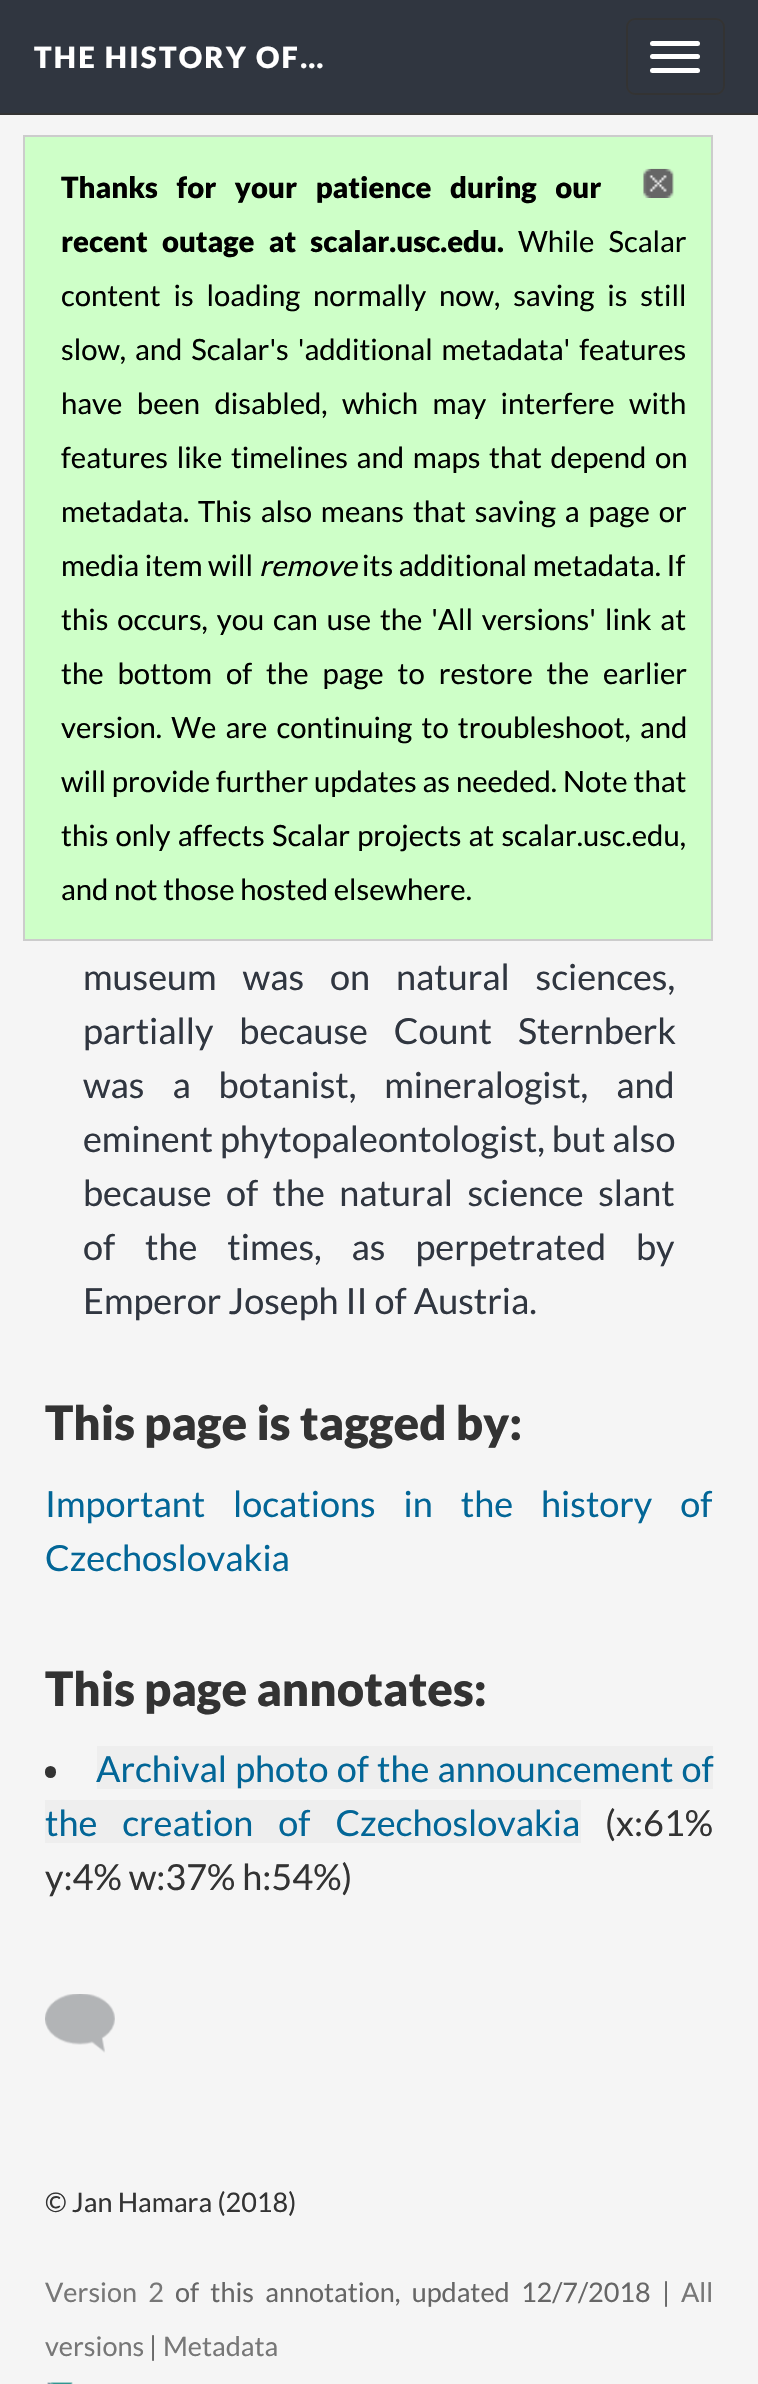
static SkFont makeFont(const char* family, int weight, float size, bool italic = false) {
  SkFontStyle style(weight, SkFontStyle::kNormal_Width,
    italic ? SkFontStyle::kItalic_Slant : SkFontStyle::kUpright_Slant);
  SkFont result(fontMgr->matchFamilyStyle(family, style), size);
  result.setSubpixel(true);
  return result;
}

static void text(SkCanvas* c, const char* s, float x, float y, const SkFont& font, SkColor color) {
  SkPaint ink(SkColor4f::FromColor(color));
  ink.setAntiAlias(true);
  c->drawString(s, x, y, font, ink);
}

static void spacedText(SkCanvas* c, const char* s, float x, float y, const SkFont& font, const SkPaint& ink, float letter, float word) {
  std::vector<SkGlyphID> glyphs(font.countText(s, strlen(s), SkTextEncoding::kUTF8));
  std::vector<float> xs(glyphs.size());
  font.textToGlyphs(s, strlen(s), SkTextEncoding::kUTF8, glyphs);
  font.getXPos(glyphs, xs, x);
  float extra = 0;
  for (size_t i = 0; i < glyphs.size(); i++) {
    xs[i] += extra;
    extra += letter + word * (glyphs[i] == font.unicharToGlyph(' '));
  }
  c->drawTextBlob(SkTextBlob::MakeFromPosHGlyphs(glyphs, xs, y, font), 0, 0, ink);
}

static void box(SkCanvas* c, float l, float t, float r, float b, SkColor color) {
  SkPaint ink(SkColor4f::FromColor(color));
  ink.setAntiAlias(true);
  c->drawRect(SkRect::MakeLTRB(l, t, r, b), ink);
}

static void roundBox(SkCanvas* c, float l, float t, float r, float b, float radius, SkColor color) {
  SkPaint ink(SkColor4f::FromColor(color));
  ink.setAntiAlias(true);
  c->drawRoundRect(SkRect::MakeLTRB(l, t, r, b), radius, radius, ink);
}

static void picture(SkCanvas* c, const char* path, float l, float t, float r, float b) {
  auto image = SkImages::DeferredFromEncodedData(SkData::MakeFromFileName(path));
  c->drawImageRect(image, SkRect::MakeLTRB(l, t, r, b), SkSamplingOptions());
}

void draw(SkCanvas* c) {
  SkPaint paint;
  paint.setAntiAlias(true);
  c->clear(0xfff5f5f5);
  box(c, 0, 0, 758, 113, 0xff303640);
  box(c, 0, 113, 758, 115, 0xff333333);
  SkFont face1 = makeFont("Lato", 900, 29.25f);
  paint.setColor(0xffffffff);
  spacedText(c, "THE HISTORY OF…", 34, 68, face1, paint, 2.25f, 0);
  paint.setStyle(SkPaint::kStroke_Style);
  paint.setStrokeWidth(2);
  paint.setColor(0xff333333);
  c->drawRoundRect(SkRect::MakeLTRB(627, 19, 724, 94), 8, 8, paint);
  roundBox(c, 650, 41, 700, 46, 2.5f, 0xffffffff);
  roundBox(c, 650, 54, 700, 59, 2.5f, 0xffffffff);
  roundBox(c, 650, 68, 700, 73, 2.5f, 0xffffffff);
  paint.setStyle(SkPaint::kFill_Style);
  paint.setColor(0xffceffc8);
  c->drawRect(SkRect::MakeLTRB(24, 136, 712, 940), paint);
  paint.setStyle(SkPaint::kStroke_Style);
  paint.setColor(0xffcccccc);
  c->drawRect(SkRect::MakeLTRB(24, 136, 712, 940), paint);
  paint.setStyle(SkPaint::kFill_Style);
  paint.setColor(0xff000000);
  spacedText(c, "Thanks for your patience during our", 61, 198, face1, paint, 0, 13);
  picture(c, "img_01.png", 643, 168, 674, 198);
  spacedText(c, "recent outage at scalar.usc.edu.", 61, 252, face1, paint, 0, 8.5f);
  SkFont face2 = makeFont("Lato", 400, 29.25f);
  spacedText(c, "While Scalar", 518, 252, face2, paint, 0, 8.5f);
  spacedText(c, "content is loading normally now, saving is still", 61, 306, face2, paint, 0, 7.25f);
  spacedText(c, "slow, and Scalar's 'additional metadata' features", 61, 360, face2, paint, 0, 3.25f);
  spacedText(c, "have been disabled, which may interfere with", 61, 414, face2, paint, 0, 8.75f);
  spacedText(c, "features like timelines and maps that depend on", 61, 468, face2, paint, 0, 3);
  spacedText(c, "metadata. This also means that saving a page or", 61, 522, face2, paint, 0, 3.25f);
  text(c, "media item will", 61, 576, face2, 0xff000000);
  SkFont face3 = makeFont("Lato", 400, 29.25f, true);
  text(c, "remove", 259, 576, face3, 0xff000000);
  text(c, "its additional metadata. If", 362, 576, face2, 0xff000000);
  spacedText(c, "this occurs, you can use the 'All versions' link at", 61, 630, face2, paint, 0, 3.25f);
  spacedText(c, "the bottom of the page to restore the earlier", 61, 684, face2, paint, 0, 8.25f);
  spacedText(c, "version. We are continuing to troubleshoot, and", 61, 738, face2, paint, 0, 3.5f);
  spacedText(c, "will provide further updates as needed. Note that", 61, 792, face2, paint, 0, 0.25f);
  spacedText(c, "this only affects Scalar projects at scalar.usc.edu,", 61, 846, face2, paint, 0, 1.5f);
  text(c, "and not those hosted elsewhere.", 61, 900, face2, 0xff000000);
  SkFont face4 = makeFont("Lato", 400, 36);
  paint.setColor(0xff303640);
  spacedText(c, "museum was on natural sciences,", 83, 990, face4, paint, 0, 19);
  spacedText(c, "partially because Count Sternberk", 83, 1044, face4, paint, 0, 19);
  spacedText(c, "was a botanist, mineralogist, and", 83, 1098, face4, paint, 0, 21);
  text(c, "eminent phytopaleontologist, but also", 83, 1152, face4, 0xff303640);
  spacedText(c, "because of the natural science slant", 83, 1206, face4, paint, 0, 7.5f);
  spacedText(c, "of the times, as perpetrated by", 83, 1260, face4, paint, 0, 23);
  text(c, "Emperor Joseph II of Austria.", 83, 1314, face4, 0xff303640);
  SkFont face5 = makeFont("Lato", 900, 47.25f);
  text(c, "This page is tagged by:", 45, 1440, face5, 0xff333333);
  paint.setColor(0xff026697);
  spacedText(c, "Important locations in the history of", 45, 1517, face4, paint, 0, 21);
  text(c, "Czechoslovakia", 45, 1571, face4, 0xff026697);
  text(c, "This page annotates:", 45, 1706, face5, 0xff333333);
  roundBox(c, 45, 1766, 56, 1778, 5.5f, 0xff333333);
  box(c, 97, 1746, 713, 1789, 0xffeeeeee);
  spacedText(c, "Archival photo of the announcement of", 96, 1782, face4, paint, 0, 1.25f);
  box(c, 45, 1800, 581, 1843, 0xffeeeeee);
  spacedText(c, "the creation of Czechoslovakia", 45, 1836, face4, paint, 0, 18);
  text(c, "(x:61%", 605, 1836, face4, 0xff333333);
  text(c, "y:4% w:37% h:54%)", 45, 1890, face4, 0xff333333);
  picture(c, "img_02.png", 45, 1994, 115, 2053);
  SkFont face6 = makeFont("Lato", 400, 27);
  text(c, "© Jan Hamara (2018)", 45, 2212, face6, 0xff333333);
  paint.setColor(0xff777777);
  spacedText(c, "Version 2", 45, 2302, face6, paint, 0, 6);
  paint.setColor(0xff666666);
  spacedText(c, "of this annotation, updated 12/7/2018", 175, 2302, face6, paint, 0, 6);
  text(c, "|", 662, 2302, face6, 0xff666666);
  text(c, "All", 681, 2302, face6, 0xff777777);
  text(c, "versions", 45, 2356, face6, 0xff777777);
  text(c, "|", 149, 2356, face6, 0xff666666);
  text(c, "Metadata", 163, 2356, face6, 0xff777777);
  picture(c, "img_03.png", 47, 2382, 73, 2384);
}
